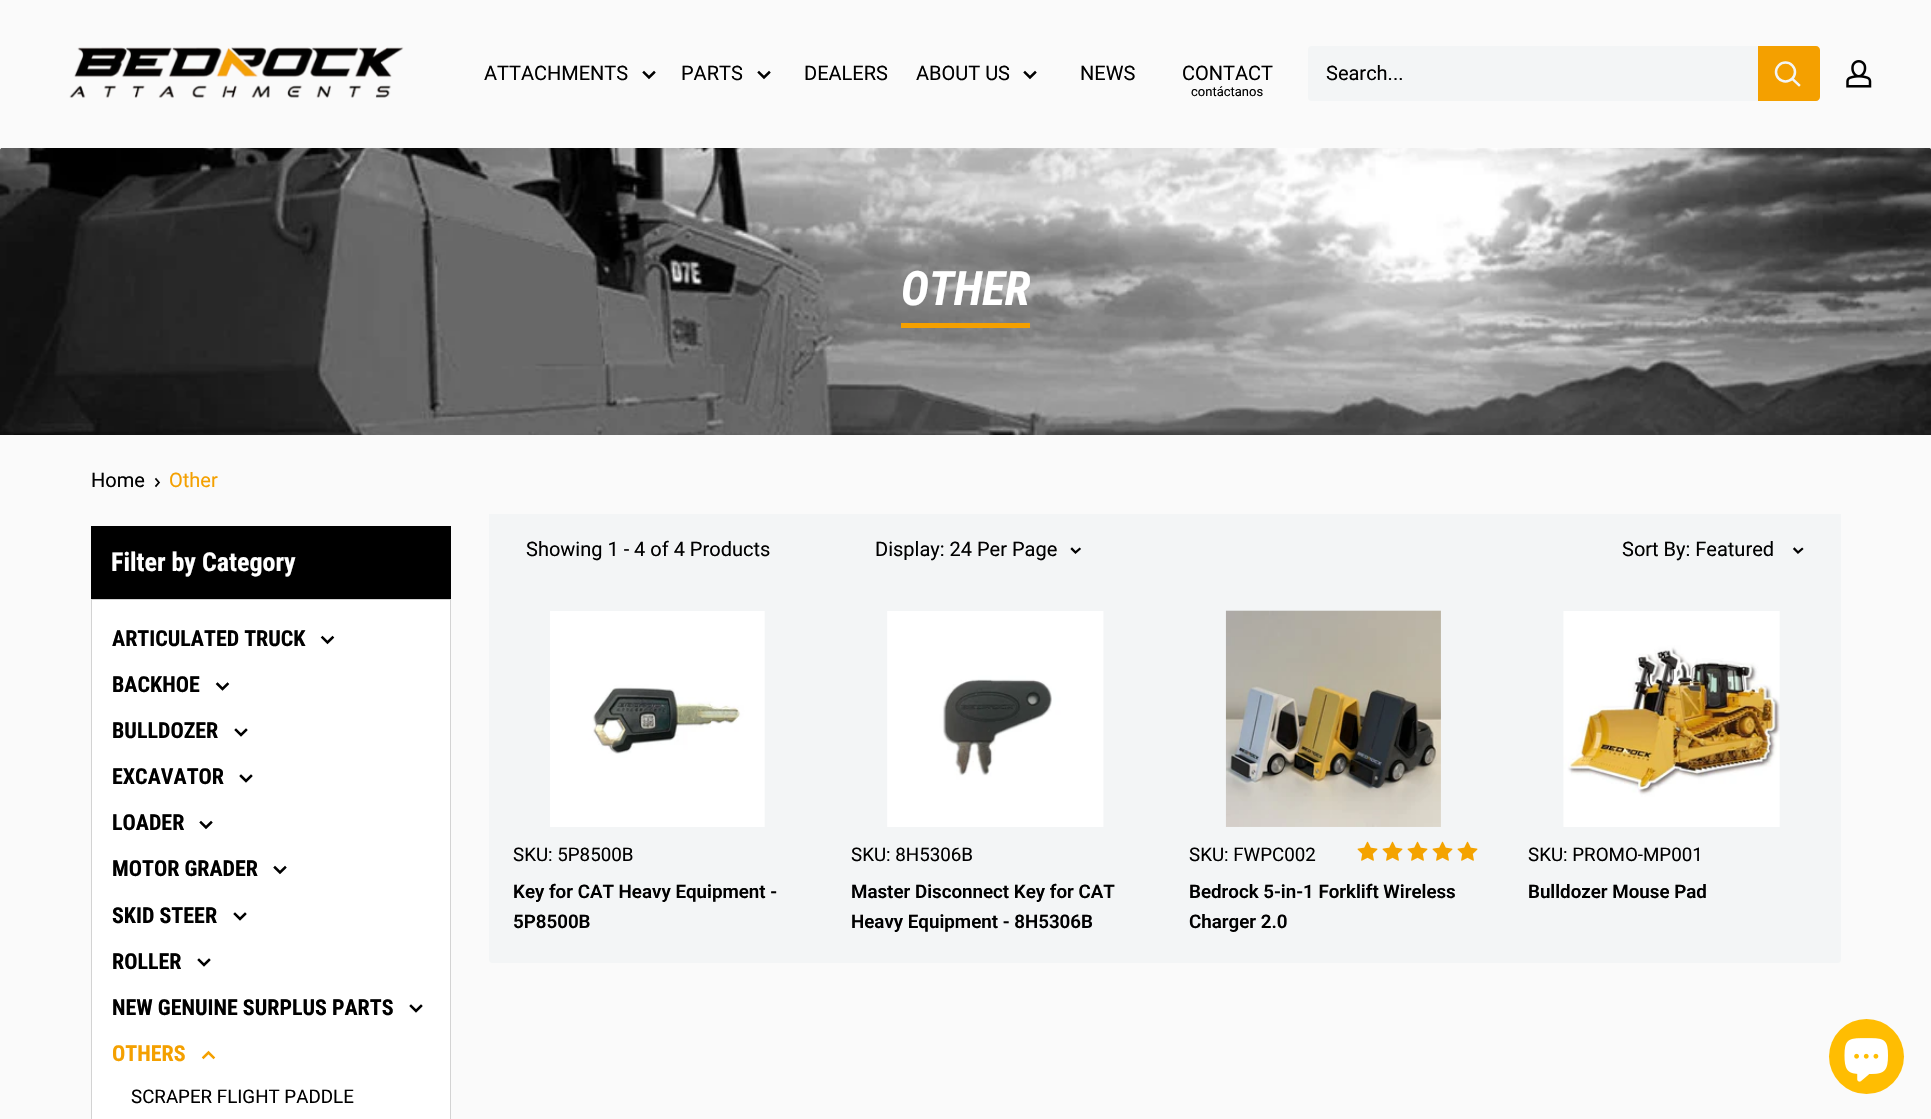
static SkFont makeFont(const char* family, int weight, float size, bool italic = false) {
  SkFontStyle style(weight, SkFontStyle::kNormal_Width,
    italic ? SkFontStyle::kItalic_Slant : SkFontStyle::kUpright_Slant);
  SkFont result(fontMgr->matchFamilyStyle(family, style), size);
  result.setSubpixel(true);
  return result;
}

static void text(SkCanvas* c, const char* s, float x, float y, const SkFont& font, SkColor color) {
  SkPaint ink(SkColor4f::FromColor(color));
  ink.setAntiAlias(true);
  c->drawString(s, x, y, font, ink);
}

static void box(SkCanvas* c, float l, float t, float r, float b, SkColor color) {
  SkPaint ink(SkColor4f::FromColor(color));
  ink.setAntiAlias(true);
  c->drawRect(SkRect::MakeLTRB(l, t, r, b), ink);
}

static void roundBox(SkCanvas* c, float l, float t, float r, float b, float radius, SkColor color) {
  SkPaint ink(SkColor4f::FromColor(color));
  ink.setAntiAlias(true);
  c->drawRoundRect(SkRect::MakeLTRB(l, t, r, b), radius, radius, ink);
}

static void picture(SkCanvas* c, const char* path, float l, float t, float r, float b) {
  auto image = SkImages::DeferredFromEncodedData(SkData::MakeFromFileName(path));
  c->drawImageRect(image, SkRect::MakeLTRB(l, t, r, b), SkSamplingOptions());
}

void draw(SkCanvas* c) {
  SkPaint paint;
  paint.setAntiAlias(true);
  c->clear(0xfffafafa);
  picture(c, "img_01.png", 69, 47, 404, 98);
  SkFont face1 = makeFont("Roboto", 400, 20);
  text(c, "ATTACHMENTS", 484, 80, face1, 0xff000000);
  paint.setStyle(SkPaint::kStroke_Style);
  paint.setStrokeWidth(2.5f);
  paint.setStrokeCap(SkPaint::kSquare_Cap);
  paint.setColor(0xff000000);
  c->drawPath(SkPathBuilder().moveTo(654, 72.5f).lineTo(649, 77.5f).lineTo(644, 72.5f).detach(), paint);
  text(c, "PARTS", 681, 80, face1, 0xff000000);
  c->drawPath(SkPathBuilder().moveTo(769, 72.5f).lineTo(764, 77.5f).lineTo(759, 72.5f).detach(), paint);
  text(c, "DEALERS", 804, 80, face1, 0xff000000);
  text(c, "ABOUT US", 916, 80, face1, 0xff000000);
  c->drawPath(SkPathBuilder().moveTo(1035, 72.5f).lineTo(1030, 77.5f).lineTo(1025, 72.5f).detach(), paint);
  text(c, "NEWS", 1080, 80, face1, 0xff000000);
  text(c, "CONTACT", 1182, 80, face1, 0xff000000);
  SkFont face2 = makeFont("Roboto", 400, 13);
  text(c, "contáctanos", 1191, 96, face2, 0xff000000);
  roundBox(c, 1308, 46, 1820, 101, 4, 0xfff3f5f6);
  text(c, "Search...", 1326, 80, face1, 0xff000000);
  paint.setStyle(SkPaint::kFill_Style);
  paint.setColor(0xfff4a000);
  c->drawPath(SkPathBuilder().moveTo(1758, 46).lineTo(1816, 46).cubicTo(1818, 46, 1820, 48, 1820, 50).lineTo(1820, 97).cubicTo(1820, 99, 1818, 101, 1816, 101).lineTo(1758, 101).close().detach(), paint);
  paint.setStyle(SkPaint::kStroke_Style);
  paint.setColor(0xfff3f5f6);
  c->drawPath(SkPathBuilder().moveTo(1799, 85).lineTo(1792.5f, 79).detach(), paint);
  paint.setStrokeCap(SkPaint::kButt_Cap);
  c->drawCircle(1785.5f, 72, 9.5f, paint);
  picture(c, "img_02.png", 1846, 60, 1872, 88);
  picture(c, "img_03.png", 0, 148, 1931, 152);
  picture(c, "img_04.png", 0, 148, 1931, 435);
  box(c, 901, 323, 1030, 328, 0xfff4a000);
  SkFont face3 = makeFont("Roboto Condensed", 700, 47.5f, true);
  text(c, "OTHER", 901, 305, face3, 0xffffffff);
  text(c, "Home", 91, 487, face1, 0xff000000);
  paint.setStrokeWidth(1.7f);
  paint.setStrokeCap(SkPaint::kSquare_Cap);
  paint.setColor(0xff000000);
  c->drawPath(SkPathBuilder().moveTo(156, 479).lineTo(159, 482.5f).lineTo(156, 486).detach(), paint);
  text(c, "Other", 169, 487, face1, 0xfff4a000);
  box(c, 91, 526, 451, 599, 0xff000000);
  SkFont face4 = makeFont("Roboto Condensed", 700, 26);
  text(c, "Filter by Category", 111, 571, face4, 0xffffffff);
  paint.setStyle(SkPaint::kFill_Style);
  paint.setColor(0xffffffff);
  c->drawRect(SkRect::MakeLTRB(91.5f, 599.5f, 450.5f, 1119.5f), paint);
  paint.setStyle(SkPaint::kStroke_Style);
  paint.setStrokeWidth(1);
  paint.setStrokeCap(SkPaint::kButt_Cap);
  paint.setColor(0xffd3d3d3);
  c->drawRect(SkRect::MakeLTRB(91.5f, 599.5f, 450.5f, 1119.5f), paint);
  SkFont face5 = makeFont("Roboto Condensed", 700, 22);
  text(c, "ARTICULATED TRUCK", 112, 646, face5, 0xff000000);
  paint.setStrokeWidth(2.5f);
  paint.setStrokeCap(SkPaint::kSquare_Cap);
  paint.setColor(0xff000000);
  c->drawPath(SkPathBuilder().moveTo(332.5f, 637.5f).lineTo(327.5f, 642.5f).lineTo(322.5f, 637.5f).detach(), paint);
  text(c, "BACKHOE", 112, 692, face5, 0xff000000);
  c->drawPath(SkPathBuilder().moveTo(227.5f, 684).lineTo(222.5f, 689).lineTo(217.5f, 684).moveTo(246, 730).lineTo(241, 735).lineTo(236, 730).detach(), paint);
  text(c, "BULLDOZER", 112, 738, face5, 0xff000000);
  text(c, "EXCAVATOR", 112, 784, face5, 0xff000000);
  c->drawPath(SkPathBuilder().moveTo(251, 776).lineTo(246, 781).lineTo(241, 776).moveTo(211, 822.5f).lineTo(206, 827.5f).lineTo(201, 822.5f).detach(), paint);
  text(c, "LOADER", 112, 830, face5, 0xff000000);
  text(c, "MOTOR GRADER", 112, 876, face5, 0xff000000);
  c->drawPath(SkPathBuilder().moveTo(285, 867.5f).lineTo(280, 872.5f).lineTo(275, 867.5f).moveTo(245, 914).lineTo(240, 919).lineTo(235, 914).detach(), paint);
  text(c, "SKID STEER", 112, 923, face5, 0xff000000);
  text(c, "ROLLER", 112, 969, face5, 0xff000000);
  c->drawPath(SkPathBuilder().moveTo(209, 960).lineTo(204, 965).lineTo(199, 960).detach(), paint);
  text(c, "NEW GENUINE SURPLUS PARTS", 112, 1015, face5, 0xff000000);
  c->drawPath(SkPathBuilder().moveTo(421, 1006).lineTo(416, 1011).lineTo(411, 1006).detach(), paint);
  text(c, "OTHERS", 112, 1061, face5, 0xfff4a000);
  paint.setColor(0xfff4a000);
  c->drawPath(SkPathBuilder().moveTo(203.5f, 1057.5f).lineTo(208.5f, 1052.5f).lineTo(213.5f, 1057.5f).detach(), paint);
  SkFont face6 = makeFont("Roboto", 400, 18.75f);
  text(c, "SCRAPER FLIGHT PADDLE", 131, 1103, face6, 0xff000000);
  roundBox(c, 489, 586, 1841, 963, 4, 0xfff3f5f6);
  box(c, 489, 514, 1841, 588, 0xfff3f5f6);
  text(c, "Showing 1 - 4 of 4 Products", 526, 556, face1, 0xff000000);
  text(c, "Display: 24 Per Page", 875, 556, face1, 0xff000000);
  paint.setStrokeWidth(2.3f);
  paint.setColor(0xff000000);
  c->drawPath(SkPathBuilder().moveTo(1079.5f, 549).lineTo(1075.5f, 552.5f).lineTo(1072, 549).detach(), paint);
  text(c, "Sort By: Featured", 1622, 556, face1, 0xff000000);
  c->drawPath(SkPathBuilder().moveTo(1802, 549).lineTo(1798, 552.5f).lineTo(1794.5f, 549).detach(), paint);
  picture(c, "img_05.png", 550, 611, 765, 827);
  text(c, "SKU: 5P8500B", 513, 861, face6, 0xff000000);
  SkFont face7 = makeFont("Roboto", 600, 18.75f);
  text(c, "Key for CAT Heavy Equipment -", 513, 898, face7, 0xff000000);
  text(c, "5P8500B", 513, 928, face7, 0xff000000);
  picture(c, "img_06.png", 887, 611, 1104, 827);
  text(c, "SKU: 8H5306B", 851, 861, face6, 0xff000000);
  text(c, "Master Disconnect Key for CAT", 851, 898, face7, 0xff000000);
  text(c, "Heavy Equipment - 8H5306B", 851, 928, face7, 0xff000000);
  picture(c, "img_07.png", 1225, 610, 1441, 827);
  text(c, "SKU: FWPC002", 1189, 861, face6, 0xff000000);
  picture(c, "img_08.png", 1357, 841, 1378, 861);
  picture(c, "img_08.png", 1382, 841, 1403, 861);
  picture(c, "img_08.png", 1407, 841, 1428, 861);
  picture(c, "img_08.png", 1432, 841, 1453, 861);
  picture(c, "img_08.png", 1457, 841, 1478, 861);
  text(c, "Bedrock 5-in-1 Forklift Wireless", 1189, 898, face7, 0xff000000);
  text(c, "Charger 2.0", 1189, 928, face7, 0xff000000);
  picture(c, "img_09.png", 1563, 611, 1780, 827);
  text(c, "SKU: PROMO-MP001", 1528, 861, face6, 0xff000000);
  text(c, "Bulldozer Mouse Pad", 1528, 898, face7, 0xff000000);
  paint.setStyle(SkPaint::kFill_Style);
  paint.setColor(0xffffbd02);
  c->drawCircle(1866.5f, 1056.5f, 37.5f, paint);
  picture(c, "img_10.png", 1844, 1038, 1888, 1082);
}
